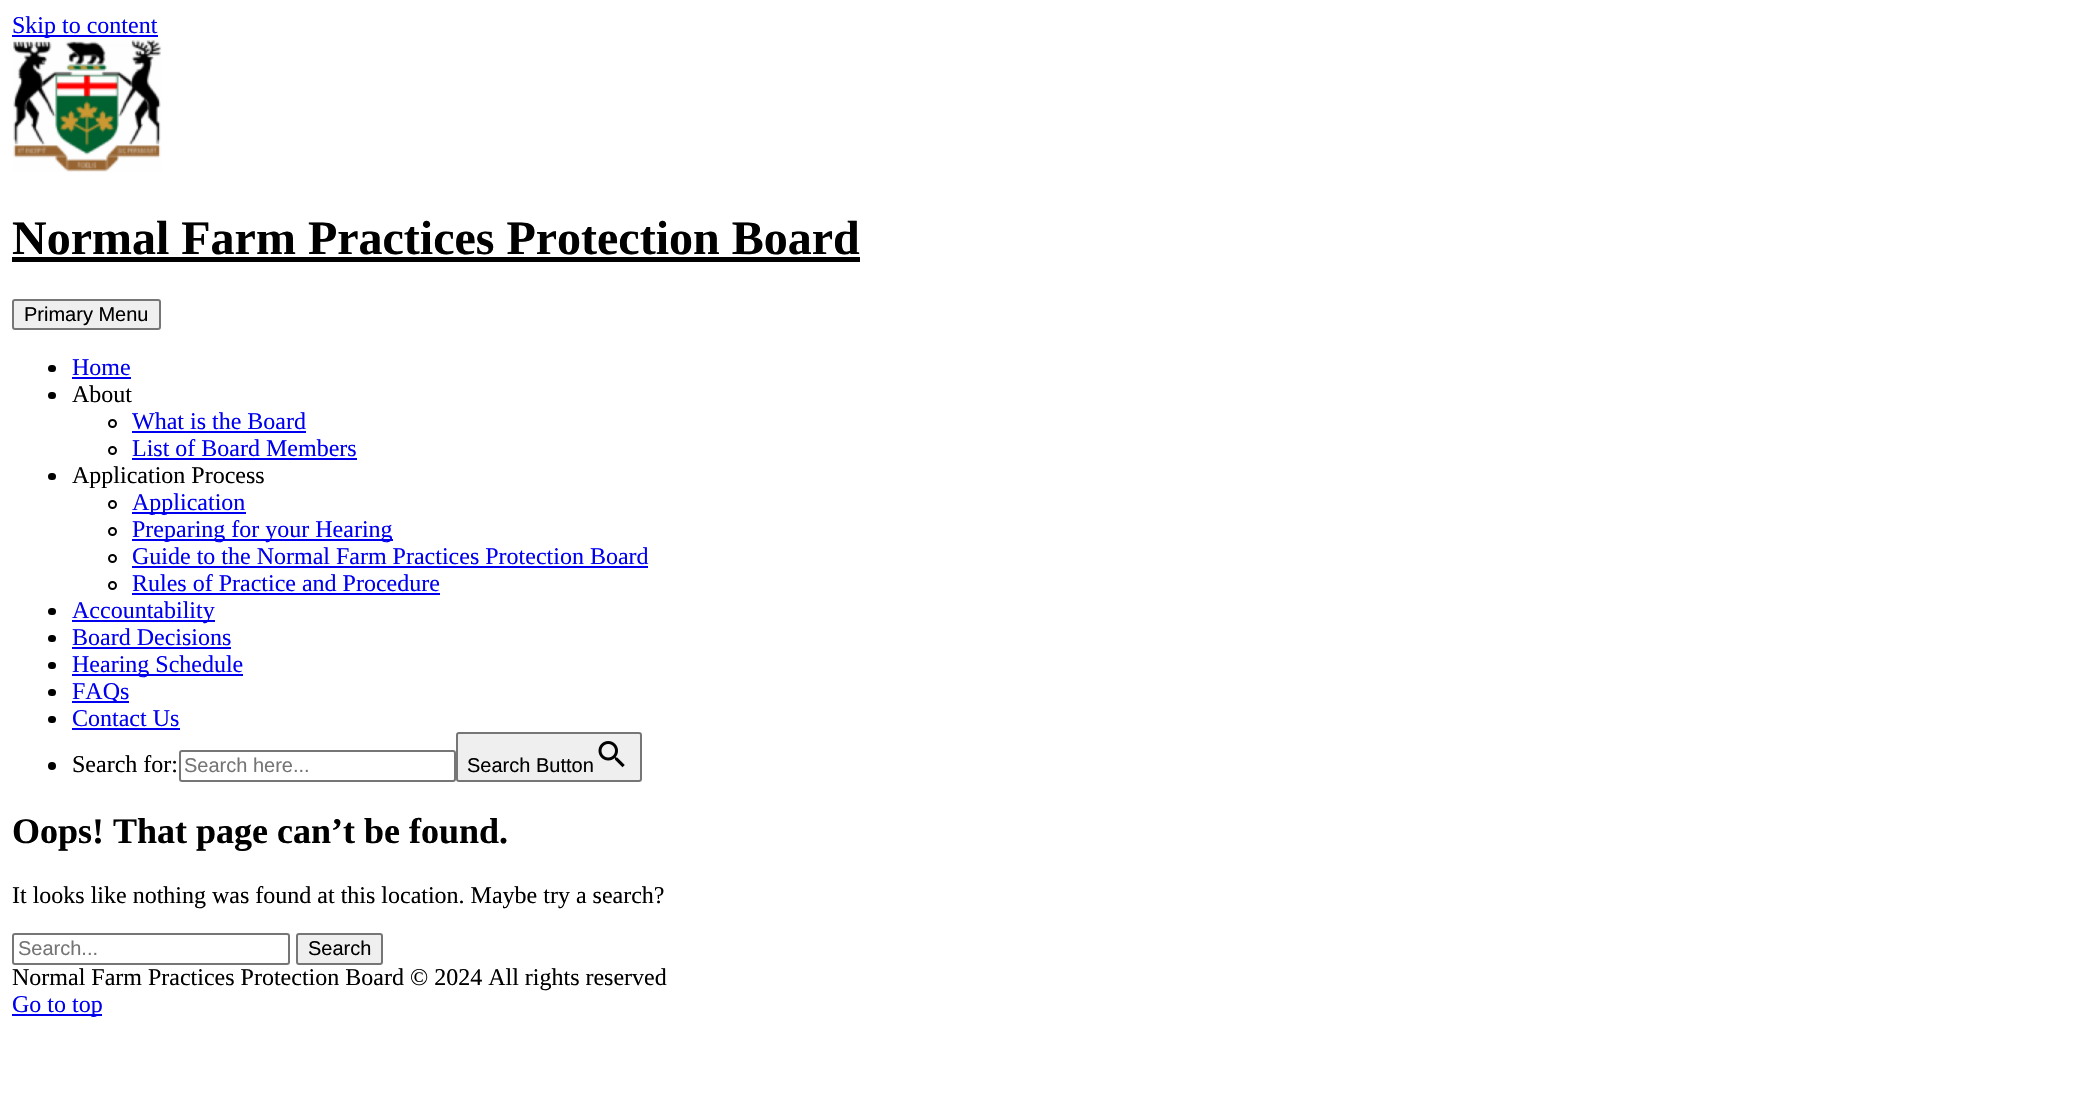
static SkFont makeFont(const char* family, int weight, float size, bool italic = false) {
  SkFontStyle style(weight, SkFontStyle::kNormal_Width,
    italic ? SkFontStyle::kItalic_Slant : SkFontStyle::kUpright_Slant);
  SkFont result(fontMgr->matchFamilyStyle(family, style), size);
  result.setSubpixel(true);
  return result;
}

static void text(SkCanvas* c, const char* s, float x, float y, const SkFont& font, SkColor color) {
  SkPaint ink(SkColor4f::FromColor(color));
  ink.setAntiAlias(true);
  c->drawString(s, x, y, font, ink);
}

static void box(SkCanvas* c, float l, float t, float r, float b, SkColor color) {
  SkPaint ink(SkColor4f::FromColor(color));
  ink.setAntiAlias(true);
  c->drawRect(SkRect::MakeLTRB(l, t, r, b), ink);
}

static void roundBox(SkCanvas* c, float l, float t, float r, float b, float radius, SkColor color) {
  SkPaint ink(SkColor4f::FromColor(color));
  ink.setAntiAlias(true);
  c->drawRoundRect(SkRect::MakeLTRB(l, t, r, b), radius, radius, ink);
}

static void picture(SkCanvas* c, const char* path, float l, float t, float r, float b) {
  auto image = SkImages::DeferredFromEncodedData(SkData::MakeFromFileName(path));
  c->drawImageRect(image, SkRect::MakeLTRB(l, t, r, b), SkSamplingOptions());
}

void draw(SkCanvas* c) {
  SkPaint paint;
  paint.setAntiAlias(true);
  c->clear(0xffffffff);
  box(c, 12, 35, 158, 37, 0xff0000ee);
  SkFont face1 = makeFont("Liberation Serif", 400, 24);
  text(c, "Skip to content", 12, 33, face1, 0xff0000ee);
  picture(c, "img_01.png", 13, 39, 162, 172);
  SkFont face2 = makeFont("Liberation Serif", 700, 48);
  text(c, "Normal Farm Practices Protection Board", 12, 254, face2, 0xff000000);
  box(c, 12, 257, 860, 262, 0xff000000);
  paint.setColor(0xffefefef);
  c->drawRoundRect(SkRect::MakeLTRB(13, 300, 160, 329), 2, 2, paint);
  paint.setStyle(SkPaint::kStroke_Style);
  paint.setStrokeWidth(2);
  paint.setColor(0xff767676);
  c->drawRoundRect(SkRect::MakeLTRB(13, 300, 160, 329), 2, 2, paint);
  SkFont face3 = makeFont("Liberation Sans", 400, 20);
  text(c, "Primary Menu", 24, 321, face3, 0xff000000);
  roundBox(c, 48, 365, 56, 372, 3.5f, 0xff000000);
  text(c, "Home", 72, 375, face1, 0xff0000ee);
  box(c, 72, 377, 131, 379, 0xff0000ee);
  roundBox(c, 48, 392, 56, 399, 3.5f, 0xff000000);
  text(c, "About", 72, 402, face1, 0xff000000);
  paint.setColor(0xff000000);
  c->drawCircle(112.5f, 423.5f, 3.5f, paint);
  text(c, "What is the Board", 132, 429, face1, 0xff0000ee);
  box(c, 132, 431, 306, 433, 0xff0000ee);
  c->drawCircle(112.5f, 450.5f, 3.5f, paint);
  text(c, "List of Board Members", 132, 456, face1, 0xff0000ee);
  box(c, 132, 458, 357, 460, 0xff0000ee);
  roundBox(c, 48, 473, 56, 480, 3.5f, 0xff000000);
  text(c, "Application Process", 72, 483, face1, 0xff000000);
  c->drawCircle(112.5f, 504.5f, 3.5f, paint);
  box(c, 132, 512, 246, 514, 0xff0000ee);
  text(c, "Application", 132, 510, face1, 0xff0000ee);
  c->drawCircle(112.5f, 531.5f, 3.5f, paint);
  box(c, 132, 539, 393, 541, 0xff0000ee);
  text(c, "Preparing for your Hearing", 132, 537, face1, 0xff0000ee);
  c->drawCircle(112.5f, 558.5f, 3.5f, paint);
  text(c, "Guide to the Normal Farm Practices Protection Board", 132, 564, face1, 0xff0000ee);
  box(c, 132, 566, 648, 568, 0xff0000ee);
  c->drawCircle(112.5f, 585.5f, 3.5f, paint);
  text(c, "Rules of Practice and Procedure", 132, 591, face1, 0xff0000ee);
  box(c, 132, 593, 440, 595, 0xff0000ee);
  roundBox(c, 48, 608, 56, 615, 3.5f, 0xff000000);
  box(c, 72, 620, 215, 622, 0xff0000ee);
  text(c, "Accountability", 72, 618, face1, 0xff0000ee);
  roundBox(c, 48, 635, 56, 642, 3.5f, 0xff000000);
  text(c, "Board Decisions", 72, 645, face1, 0xff0000ee);
  box(c, 72, 647, 231, 649, 0xff0000ee);
  roundBox(c, 48, 662, 56, 669, 3.5f, 0xff000000);
  box(c, 72, 674, 243, 676, 0xff0000ee);
  text(c, "Hearing Schedule", 72, 672, face1, 0xff0000ee);
  roundBox(c, 48, 689, 56, 696, 3.5f, 0xff000000);
  box(c, 72, 701, 129, 703, 0xff0000ee);
  text(c, "FAQs", 72, 699, face1, 0xff0000ee);
  roundBox(c, 48, 716, 56, 723, 3.5f, 0xff000000);
  text(c, "Contact Us", 72, 726, face1, 0xff0000ee);
  box(c, 72, 728, 180, 730, 0xff0000ee);
  paint.setStyle(SkPaint::kFill_Style);
  c->drawCircle(52, 766, 4, paint);
  text(c, "Search for:", 72, 772, face1, 0xff000000);
  paint.setStyle(SkPaint::kStroke_Style);
  paint.setColor(0xff767676);
  c->drawRoundRect(SkRect::MakeLTRB(180, 751, 455, 781), 2, 2, paint);
  text(c, "Search here...", 184, 772, face3, 0xff757575);
  paint.setStyle(SkPaint::kFill_Style);
  paint.setColor(0xffefefef);
  c->drawRoundRect(SkRect::MakeLTRB(457, 733, 641, 781), 2, 2, paint);
  paint.setStyle(SkPaint::kStroke_Style);
  paint.setColor(0xff767676);
  c->drawRoundRect(SkRect::MakeLTRB(457, 733, 641, 781), 2, 2, paint);
  text(c, "Search Button", 467, 772, face3, 0xff000000);
  picture(c, "img_02.png", 598, 741, 625, 768);
  SkFont face4 = makeFont("Liberation Serif", 700, 36);
  text(c, "Oops! That page can’t be found.", 12, 843, face4, 0xff000000);
  text(c, "It looks like nothing was found at this location. Maybe try a search?", 12, 903, face1, 0xff000000);
  c->drawRoundRect(SkRect::MakeLTRB(13, 934, 289, 964), 2, 2, paint);
  text(c, "Search...", 18, 955, face3, 0xff757575);
  paint.setStyle(SkPaint::kFill_Style);
  paint.setColor(0xffefefef);
  c->drawRoundRect(SkRect::MakeLTRB(297, 934, 382, 964), 2, 2, paint);
  paint.setStyle(SkPaint::kStroke_Style);
  paint.setColor(0xff767676);
  c->drawRoundRect(SkRect::MakeLTRB(297, 934, 382, 964), 2, 2, paint);
  text(c, "Search", 308, 955, face3, 0xff000000);
  text(c, "Normal Farm Practices Protection Board © 2024 All rights reserved", 12, 985, face1, 0xff000000);
  box(c, 12, 1014, 102, 1016, 0xff0000ee);
  text(c, "Go to top", 12, 1012, face1, 0xff0000ee);
}
